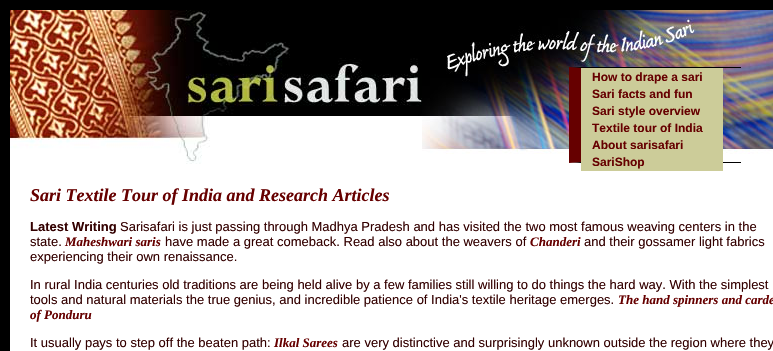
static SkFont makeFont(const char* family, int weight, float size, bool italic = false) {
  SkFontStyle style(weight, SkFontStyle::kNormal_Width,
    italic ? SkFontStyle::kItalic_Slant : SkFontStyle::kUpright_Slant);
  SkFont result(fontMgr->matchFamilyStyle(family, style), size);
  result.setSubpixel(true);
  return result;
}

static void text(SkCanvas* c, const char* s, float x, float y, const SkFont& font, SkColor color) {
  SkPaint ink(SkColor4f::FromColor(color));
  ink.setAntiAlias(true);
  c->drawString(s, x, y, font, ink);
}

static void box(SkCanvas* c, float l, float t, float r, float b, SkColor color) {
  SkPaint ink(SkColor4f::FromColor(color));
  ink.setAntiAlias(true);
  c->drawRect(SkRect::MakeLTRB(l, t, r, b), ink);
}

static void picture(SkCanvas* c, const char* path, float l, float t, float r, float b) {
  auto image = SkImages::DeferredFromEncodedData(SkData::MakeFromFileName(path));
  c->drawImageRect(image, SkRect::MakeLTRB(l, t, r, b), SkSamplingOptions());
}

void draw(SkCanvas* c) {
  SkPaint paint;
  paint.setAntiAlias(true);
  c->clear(0xff000000);
  box(c, 10, 116, 773, 351, 0xffffffff);
  picture(c, "img_01.png", 422, 10, 773, 154);
  picture(c, "img_02.png", 10, 10, 422, 116);
  picture(c, "img_03.png", 10, 116, 210, 164);
  paint.setColor(0xff000000);
  c->drawPath(SkPathBuilder().moveTo(569, 67).lineTo(741, 67).lineTo(741, 68).lineTo(581, 68).close().detach(), paint);
  c->drawPath(SkPathBuilder().moveTo(741, 163).lineTo(569, 163).lineTo(581, 162).lineTo(741, 162).close().detach(), paint);
  paint.setColor(0xff660000);
  c->drawPath(SkPathBuilder().moveTo(569, 163).lineTo(569, 67).lineTo(581, 68).lineTo(581, 162).close().detach(), paint);
  box(c, 581, 68, 723, 171, 0xffcccc99);
  SkFont face1 = makeFont("Liberation Sans", 700, 12);
  text(c, "How to drape a sari", 592, 81, face1, 0xff660000);
  text(c, "Sari facts and fun", 592, 98, face1, 0xff660000);
  text(c, "Sari style overview", 592, 115, face1, 0xff660000);
  text(c, "Textile tour of India", 592, 132, face1, 0xff660000);
  text(c, "About sarisafari", 592, 149, face1, 0xff660000);
  text(c, "SariShop", 592, 166, face1, 0xff660000);
  SkFont face2 = makeFont("Liberation Serif", 700, 18, true);
  text(c, "Sari Textile Tour of India and Research Articles", 30, 201, face2, 0xff660000);
  SkFont face3 = makeFont("Liberation Sans", 700, 13);
  text(c, "Latest Writing", 30, 231, face3, 0xff330000);
  SkFont face4 = makeFont("Liberation Sans", 400, 13);
  text(c, "Sarisafari is just passing through Madhya Pradesh and has visited the two most famous weaving centers in the", 120, 231, face4, 0xff330000);
  text(c, "state.", 30, 246, face4, 0xff330000);
  SkFont face5 = makeFont("Liberation Serif", 700, 13, true);
  text(c, "Maheshwari saris", 65, 246, face5, 0xff660000);
  text(c, "have made a great comeback. Read also about the weavers of", 165, 246, face4, 0xff330000);
  text(c, "Chanderi", 530, 246, face5, 0xff660000);
  text(c, "and their gossamer light fabrics", 584, 246, face4, 0xff330000);
  text(c, "experiencing their own renaissance.", 30, 261, face4, 0xff330000);
  text(c, "In rural India centuries old traditions are being held alive by a few families still willing to do things the hard way. With the simplest", 30, 289, face4, 0xff330000);
  text(c, "tools and natural materials the true genius, and incredible patience of India's textile heritage emerges.", 30, 304, face4, 0xff330000);
  text(c, "The hand spinners and carde", 618, 304, face5, 0xff660000);
  text(c, "of Ponduru", 30, 319, face5, 0xff660000);
  text(c, "It usually pays to step off the beaten path:", 30, 347, face4, 0xff330000);
  text(c, "Ilkal Sarees", 274, 347, face5, 0xff660000);
  text(c, "are very distinctive and surprisingly unknown outside the region where they", 342, 347, face4, 0xff330000);
}
